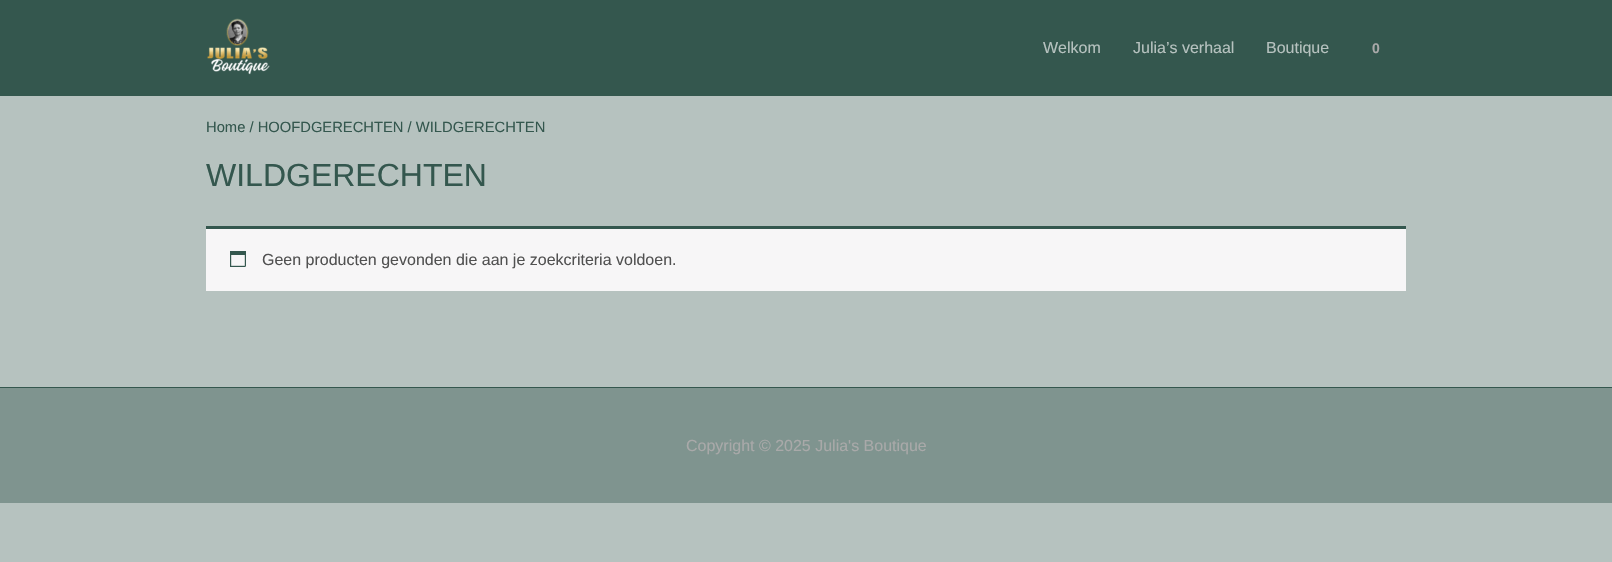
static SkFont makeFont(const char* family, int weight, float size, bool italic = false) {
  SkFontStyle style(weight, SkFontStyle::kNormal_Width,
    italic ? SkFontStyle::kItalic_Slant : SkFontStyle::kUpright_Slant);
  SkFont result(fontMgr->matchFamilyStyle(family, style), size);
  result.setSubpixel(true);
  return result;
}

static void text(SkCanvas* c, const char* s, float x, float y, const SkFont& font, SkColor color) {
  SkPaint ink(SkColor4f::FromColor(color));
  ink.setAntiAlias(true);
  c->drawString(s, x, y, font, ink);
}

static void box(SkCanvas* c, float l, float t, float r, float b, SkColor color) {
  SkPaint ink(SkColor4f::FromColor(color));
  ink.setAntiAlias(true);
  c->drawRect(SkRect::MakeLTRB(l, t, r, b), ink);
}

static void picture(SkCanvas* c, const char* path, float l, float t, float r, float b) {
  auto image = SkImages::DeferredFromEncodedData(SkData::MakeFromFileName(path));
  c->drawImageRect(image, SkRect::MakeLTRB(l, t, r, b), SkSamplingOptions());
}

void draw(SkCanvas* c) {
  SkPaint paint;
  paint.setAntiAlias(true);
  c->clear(0xffb6c2bf);
  box(c, 0, 0, 1612, 96, 0xff34574e);
  picture(c, "img_01.png", 207, 18, 270, 75);
  SkFont face1 = makeFont("Liberation Sans", 400, 16);
  text(c, "Welkom", 1043, 53, face1, 0xffb6c2bf);
  text(c, "Julia’s verhaal", 1133, 53, face1, 0xffb6c2bf);
  text(c, "Boutique", 1266, 53, face1, 0xffb6c2bf);
  SkFont face2 = makeFont("Liberation Sans", 700, 14);
  text(c, "0", 1372, 53, face2, 0xffa9a9a9);
  SkFont face3 = makeFont("Liberation Sans", 400, 14.75f);
  text(c, "Home / HOOFDGERECHTEN / WILDGERECHTEN", 206, 132, face3, 0xff34574e);
  SkFont face4 = makeFont("Liberation Sans", 400, 32);
  text(c, "WILDGERECHTEN", 206, 186, face4, 0xff34574e);
  box(c, 206, 229, 1406, 291, 0xfff7f6f7);
  box(c, 206, 226, 1406, 229, 0xff34574e);
  picture(c, "img_02.png", 230, 251, 246, 267);
  text(c, "Geen producten gevonden die aan je zoekcriteria voldoen.", 262, 265, face1, 0xff515151);
  box(c, 0, 387, 1612, 388, 0xff34574e);
  box(c, 0, 388, 1612, 503, 0xff7f948f);
  text(c, "Copyright © 2025 Julia's Boutique", 686, 451, face1, 0xffa9a9a9);
}
